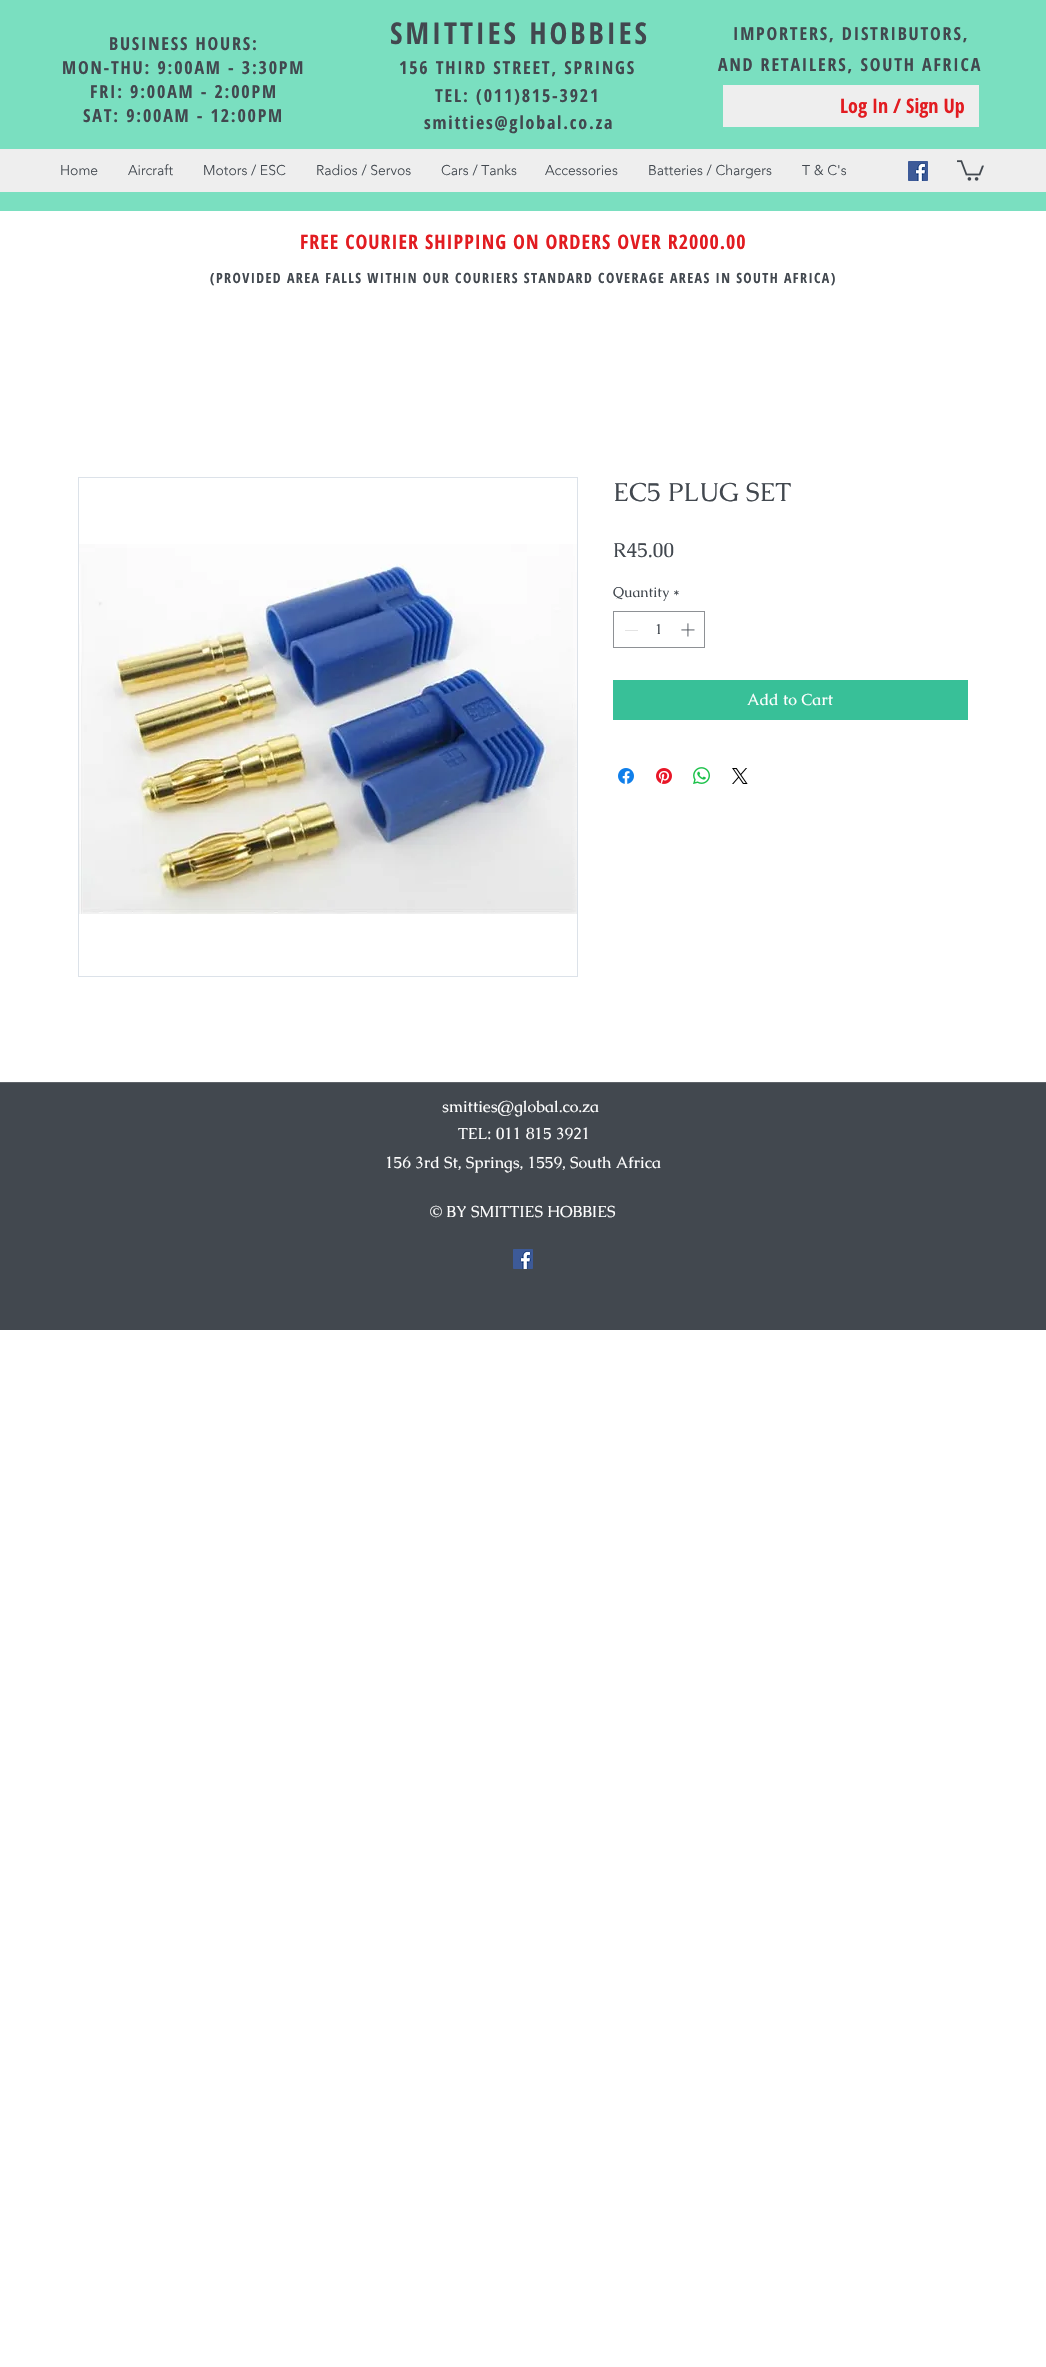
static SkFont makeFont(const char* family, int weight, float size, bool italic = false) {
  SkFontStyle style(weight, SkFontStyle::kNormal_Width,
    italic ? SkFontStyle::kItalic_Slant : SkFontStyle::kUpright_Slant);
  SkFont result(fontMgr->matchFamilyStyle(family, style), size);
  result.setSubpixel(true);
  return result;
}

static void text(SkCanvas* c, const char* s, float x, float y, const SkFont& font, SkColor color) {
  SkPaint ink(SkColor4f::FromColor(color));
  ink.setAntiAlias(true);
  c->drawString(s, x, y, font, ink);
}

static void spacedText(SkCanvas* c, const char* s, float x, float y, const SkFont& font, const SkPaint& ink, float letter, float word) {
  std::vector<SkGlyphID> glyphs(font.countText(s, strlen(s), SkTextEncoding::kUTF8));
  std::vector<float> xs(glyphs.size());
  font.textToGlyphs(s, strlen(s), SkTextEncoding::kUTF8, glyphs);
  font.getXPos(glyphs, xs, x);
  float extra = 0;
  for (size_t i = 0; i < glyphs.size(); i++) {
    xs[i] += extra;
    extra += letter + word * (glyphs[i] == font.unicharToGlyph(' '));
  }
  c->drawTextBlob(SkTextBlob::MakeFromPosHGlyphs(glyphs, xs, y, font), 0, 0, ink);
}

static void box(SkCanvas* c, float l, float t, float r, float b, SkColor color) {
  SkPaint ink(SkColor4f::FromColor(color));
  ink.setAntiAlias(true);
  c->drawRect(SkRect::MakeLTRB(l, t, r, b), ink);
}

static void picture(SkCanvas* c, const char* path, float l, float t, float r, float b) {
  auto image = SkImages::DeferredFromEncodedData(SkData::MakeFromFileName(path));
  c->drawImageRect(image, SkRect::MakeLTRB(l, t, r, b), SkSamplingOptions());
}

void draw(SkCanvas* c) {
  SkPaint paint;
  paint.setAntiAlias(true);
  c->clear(0xffffffff);
  box(c, 0, 0, 1046, 211, 0xff7adfc0);
  SkFont face1 = makeFont("Open Sans Condensed", 700, 30);
  paint.setColor(0xff42484f);
  spacedText(c, "SMITTIES HOBBIES", 390, 44, face1, paint, 3, 0);
  SkFont face2 = makeFont("Open Sans Condensed", 700, 18);
  spacedText(c, "156 THIRD STREET, SPRINGS", 399, 74, face2, paint, 1.8f, 0);
  spacedText(c, "TEL: (011)815-3921", 435, 102, face2, paint, 1.8f, 0);
  box(c, 0, 149, 1046, 192, 0xffeeeeee);
  SkFont face3 = makeFont("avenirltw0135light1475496", 300, 14);
  text(c, "Home", 60, 175, face3, 0xff42484f);
  text(c, "Aircraft", 128, 175, face3, 0xff42484f);
  text(c, "Motors / ESC", 203, 175, face3, 0xff42484f);
  text(c, "Radios / Servos", 316, 175, face3, 0xff42484f);
  text(c, "Cars / Tanks", 441, 175, face3, 0xff42484f);
  text(c, "Accessories", 545, 175, face3, 0xff42484f);
  text(c, "Batteries / Chargers", 648, 175, face3, 0xff42484f);
  text(c, "T & C's", 802, 175, face3, 0xff42484f);
  picture(c, "img_01.png", 908, 161, 928, 181);
  picture(c, "img_02.png", 957, 160, 984, 181);
  spacedText(c, "IMPORTERS, DISTRIBUTORS,", 733, 40, face2, paint, 1.8f, 0);
  spacedText(c, "BUSINESS HOURS:", 109, 50, face2, paint, 1.8f, 0);
  spacedText(c, "MON-THU: 9:00AM - 3:30PM", 62, 74, face2, paint, 1.8f, 0);
  spacedText(c, "FRI: 9:00AM - 2:00PM", 90, 98, face2, paint, 1.8f, 0);
  spacedText(c, "SAT: 9:00AM - 12:00PM", 83, 122, face2, paint, 1.8f, 0);
  spacedText(c, "AND RETAILERS, SOUTH AFRICA", 718, 71, face2, paint, 1.8f, 0);
  box(c, 723, 85, 979, 127, 0xffeeeeee);
  SkFont face4 = makeFont("Open Sans Condensed", 700, 20);
  text(c, "Log In / Sign Up", 840, 113, face4, 0xffe21c21);
  spacedText(c, "smitties@global.co.za", 424, 129, face2, paint, 1.8f, 0);
  paint.setColor(0xffe21c21);
  spacedText(c, "FREE COURIER SHIPPING ON ORDERS OVER R2000.00", 300, 249, face4, paint, 1, 0);
  SkFont face5 = makeFont("Open Sans Condensed", 700, 14);
  paint.setColor(0xff42484f);
  spacedText(c, "(PROVIDED AREA FALLS WITHIN OUR COURIERS STANDARD COVERAGE AREAS IN SOUTH AFRICA)", 210, 283, face5, paint, 1.4f, 0);
  paint.setStyle(SkPaint::kStroke_Style);
  paint.setStrokeWidth(1);
  paint.setColor(0xffdce2e9);
  c->drawRect(SkRect::MakeLTRB(78.5f, 477.5f, 577.5f, 976.5f), paint);
  picture(c, "img_03.png", 79, 544, 577, 914);
  SkFont face6 = makeFont("Caudex", 400, 26);
  text(c, "EC5 PLUG SET", 613, 501, face6, 0xff42484f);
  SkFont face7 = makeFont("Caudex", 400, 20);
  text(c, "R45.00", 613, 557, face7, 0xff42484f);
  SkFont face8 = makeFont("Caudex", 400, 14);
  text(c, "Quantity *", 613, 597, face8, 0xff42484f);
  paint.setColor(0xff8e9195);
  c->drawRect(SkRect::MakeLTRB(613.5f, 611.5f, 704.5f, 647.5f), paint);
  box(c, 625, 630, 638, 631, 0xffe3e3e3);
  text(c, "1", 655, 634, face8, 0xff42484f);
  picture(c, "img_04.png", 681, 623, 695, 637);
  box(c, 613, 680, 968, 720, 0xff38c098);
  SkFont face9 = makeFont("Caudex", 400, 16);
  text(c, "Add to Cart", 747, 705, face9, 0xffffffff);
  picture(c, "img_05.png", 618, 768, 634, 784);
  picture(c, "img_06.png", 656, 768, 672, 784);
  picture(c, "img_07.png", 693, 767, 710, 784);
  picture(c, "img_08.png", 732, 768, 748, 784);
  box(c, 0, 1083, 1046, 1330, 0xff42484f);
  box(c, 0, 1082, 1046, 1083, 0xff5e6369);
  text(c, "smitties@global.co.za", 442, 1112, face9, 0xffffffff);
  text(c, "TEL: 011 815 3921", 458, 1139, face9, 0xffffffff);
  text(c, "156 3rd St, Springs, 1559, South Africa", 385, 1168, face9, 0xffffffff);
  text(c, "© BY SMITTIES HOBBIES", 430, 1217, face9, 0xffffffff);
  picture(c, "img_09.png", 513, 1249, 533, 1269);
}
